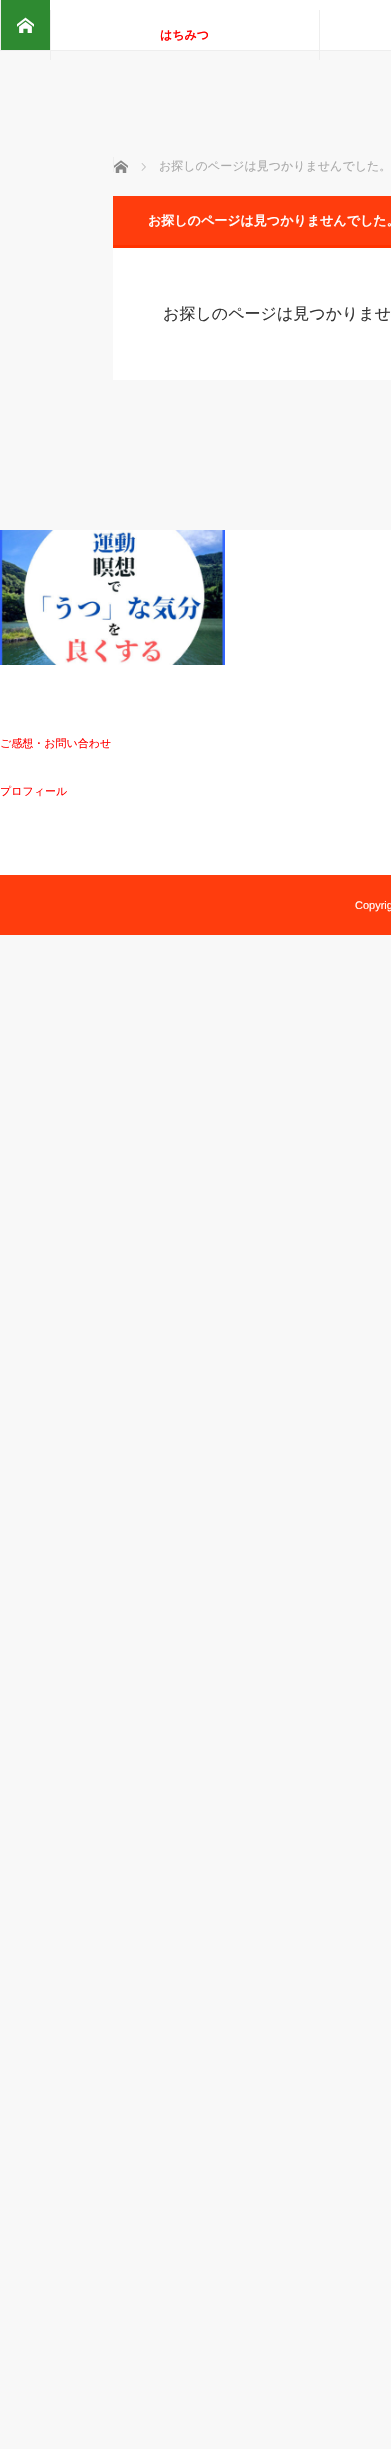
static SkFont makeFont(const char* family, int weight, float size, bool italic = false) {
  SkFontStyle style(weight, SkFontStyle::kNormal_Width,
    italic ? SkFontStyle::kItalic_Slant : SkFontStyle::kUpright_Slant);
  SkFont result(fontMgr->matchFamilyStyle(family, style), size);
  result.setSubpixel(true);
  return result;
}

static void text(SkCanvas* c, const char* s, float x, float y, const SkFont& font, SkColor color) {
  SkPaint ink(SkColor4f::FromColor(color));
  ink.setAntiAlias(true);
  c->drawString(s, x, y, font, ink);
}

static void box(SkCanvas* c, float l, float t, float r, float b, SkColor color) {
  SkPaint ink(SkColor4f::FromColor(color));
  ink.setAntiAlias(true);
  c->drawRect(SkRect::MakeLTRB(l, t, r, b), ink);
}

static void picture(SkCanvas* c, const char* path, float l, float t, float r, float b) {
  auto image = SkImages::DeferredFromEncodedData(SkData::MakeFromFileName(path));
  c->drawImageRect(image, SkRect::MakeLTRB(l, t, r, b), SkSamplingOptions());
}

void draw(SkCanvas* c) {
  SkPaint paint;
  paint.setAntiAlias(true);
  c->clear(0xfff8f8f8);
  box(c, 50, 0, 391, 50, 0xffffffff);
  box(c, 0, 50, 391, 51, 0xffeeeeee);
  box(c, 1, 0, 50, 50, 0xff2e8a31);
  box(c, 0, 0, 1, 50, 0xffeeeeee);
  picture(c, "img_01.png", 17, 17, 34, 33);
  box(c, 50, 10, 51, 60, 0xffeeeeee);
  SkFont face1 = makeFont("WenQuanYi Zen Hei", 700, 12);
  text(c, "はちみつ", 160, 39, face1, 0xffff0000);
  box(c, 319, 10, 320, 60, 0xffeeeeee);
  box(c, 113, 157, 114, 172, 0xffeeeeee);
  picture(c, "img_02.png", 114, 160, 128, 173);
  picture(c, "img_03.png", 141, 163, 146, 171);
  SkFont face2 = makeFont("WenQuanYi Zen Hei", 500, 12);
  text(c, "お探しのページは見つかりませんでした。", 159, 170, face2, 0xffaaaaaa);
  box(c, 113, 248, 391, 380, 0xffffffff);
  box(c, 113, 196, 391, 245, 0xffff3d0d);
  box(c, 113, 245, 391, 248, 0xffff3300);
  SkFont face3 = makeFont("WenQuanYi Zen Hei", 700, 13);
  text(c, "お探しのページは見つかりませんでした。", 148, 225, face3, 0xffffffff);
  SkFont face4 = makeFont("WenQuanYi Zen Hei", 500, 16);
  text(c, "お探しのページは見つかりませ", 163, 319, face4, 0xff333333);
  picture(c, "img_04.png", 0, 530, 225, 665);
  box(c, 225, 530, 391, 665, 0xffffffff);
  box(c, 0, 665, 391, 875, 0xffffffff);
  SkFont face5 = makeFont("WenQuanYi Zen Hei", 500, 11);
  text(c, "ご感想・お問い合わせ", 0, 747, face5, 0xffff0000);
  text(c, "プロフィール", 0, 795, face5, 0xffff0000);
  box(c, 0, 875, 391, 935, 0xffff3d0d);
  SkFont face6 = makeFont("Liberation Sans", 400, 11);
  text(c, "Copyrig", 355, 909, face6, 0xffffffff);
}
